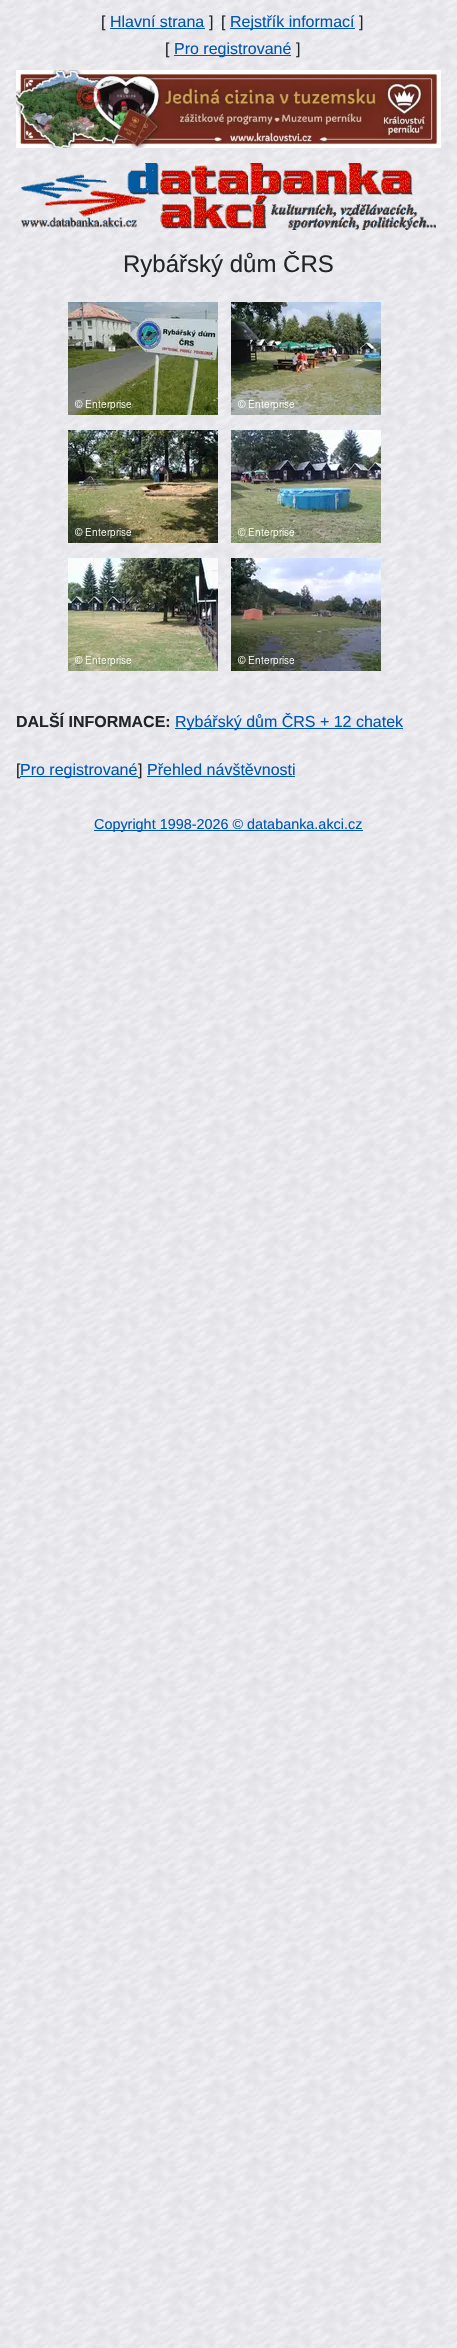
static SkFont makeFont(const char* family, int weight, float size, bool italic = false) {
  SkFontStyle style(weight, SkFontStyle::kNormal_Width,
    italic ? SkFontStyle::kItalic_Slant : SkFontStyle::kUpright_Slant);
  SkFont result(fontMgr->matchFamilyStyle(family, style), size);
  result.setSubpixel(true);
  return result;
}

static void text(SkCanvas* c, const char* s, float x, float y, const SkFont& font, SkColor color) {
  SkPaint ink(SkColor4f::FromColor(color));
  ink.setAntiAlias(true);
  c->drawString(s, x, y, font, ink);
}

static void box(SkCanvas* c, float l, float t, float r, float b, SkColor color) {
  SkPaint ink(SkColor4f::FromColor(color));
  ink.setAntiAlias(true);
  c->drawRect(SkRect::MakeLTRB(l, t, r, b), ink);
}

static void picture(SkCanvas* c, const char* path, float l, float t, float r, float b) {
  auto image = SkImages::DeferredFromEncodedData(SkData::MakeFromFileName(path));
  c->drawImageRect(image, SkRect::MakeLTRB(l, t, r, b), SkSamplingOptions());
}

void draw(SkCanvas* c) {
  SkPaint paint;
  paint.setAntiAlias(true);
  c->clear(0xffffffff);
  picture(c, "img_01.png", 0, 0, 457, 2348);
  SkFont face1 = makeFont("Liberation Sans", 400, 16);
  text(c, "[", 101, 27, face1, 0xff212529);
  text(c, "Hlavní strana", 110, 27, face1, 0xff0056b3);
  box(c, 110, 28, 205, 29, 0xff0056b3);
  text(c, "]", 209, 27, face1, 0xff212529);
  text(c, "[", 221, 27, face1, 0xff212529);
  box(c, 230, 28, 355, 29, 0xff0056b3);
  text(c, "Rejstřík informací", 230, 27, face1, 0xff0056b3);
  text(c, "]", 359, 27, face1, 0xff212529);
  text(c, "[", 165, 54, face1, 0xff212529);
  box(c, 174, 55, 291, 56, 0xff0056b3);
  text(c, "Pro registrované", 174, 54, face1, 0xff0056b3);
  text(c, "]", 296, 54, face1, 0xff212529);
  picture(c, "img_02.png", 16, 70, 441, 148);
  picture(c, "img_03.png", 21, 163, 436, 230);
  SkFont face2 = makeFont("Liberation Sans", 400, 24);
  text(c, "Rybářský dům ČRS", 123, 272, face2, 0xff212529);
  picture(c, "img_04.png", 68, 302, 218, 415);
  picture(c, "img_05.png", 231, 302, 381, 415);
  picture(c, "img_06.png", 68, 430, 218, 543);
  picture(c, "img_07.png", 231, 430, 381, 543);
  picture(c, "img_08.png", 68, 558, 218, 671);
  picture(c, "img_09.png", 231, 558, 381, 671);
  SkFont face3 = makeFont("Liberation Sans", 700, 16);
  text(c, "DALŠÍ INFORMACE:", 16, 727, face3, 0xff212529);
  box(c, 175, 728, 403, 729, 0xff0056b3);
  text(c, "Rybářský dům ČRS + 12 chatek", 175, 727, face1, 0xff0056b3);
  text(c, "[", 16, 775, face1, 0xff212529);
  box(c, 20, 776, 138, 777, 0xff0056b3);
  text(c, "Pro registrované", 20, 775, face1, 0xff0056b3);
  text(c, "]", 138, 775, face1, 0xff212529);
  text(c, "Přehled návštěvnosti", 147, 775, face1, 0xff0056b3);
  box(c, 147, 776, 295, 777, 0xff0056b3);
  box(c, 94, 830, 363, 831, 0xff0056b3);
  SkFont face4 = makeFont("Liberation Sans", 400, 14.4f);
  text(c, "Copyright 1998-2026 © databanka.akci.cz", 94, 829, face4, 0xff0056b3);
}
